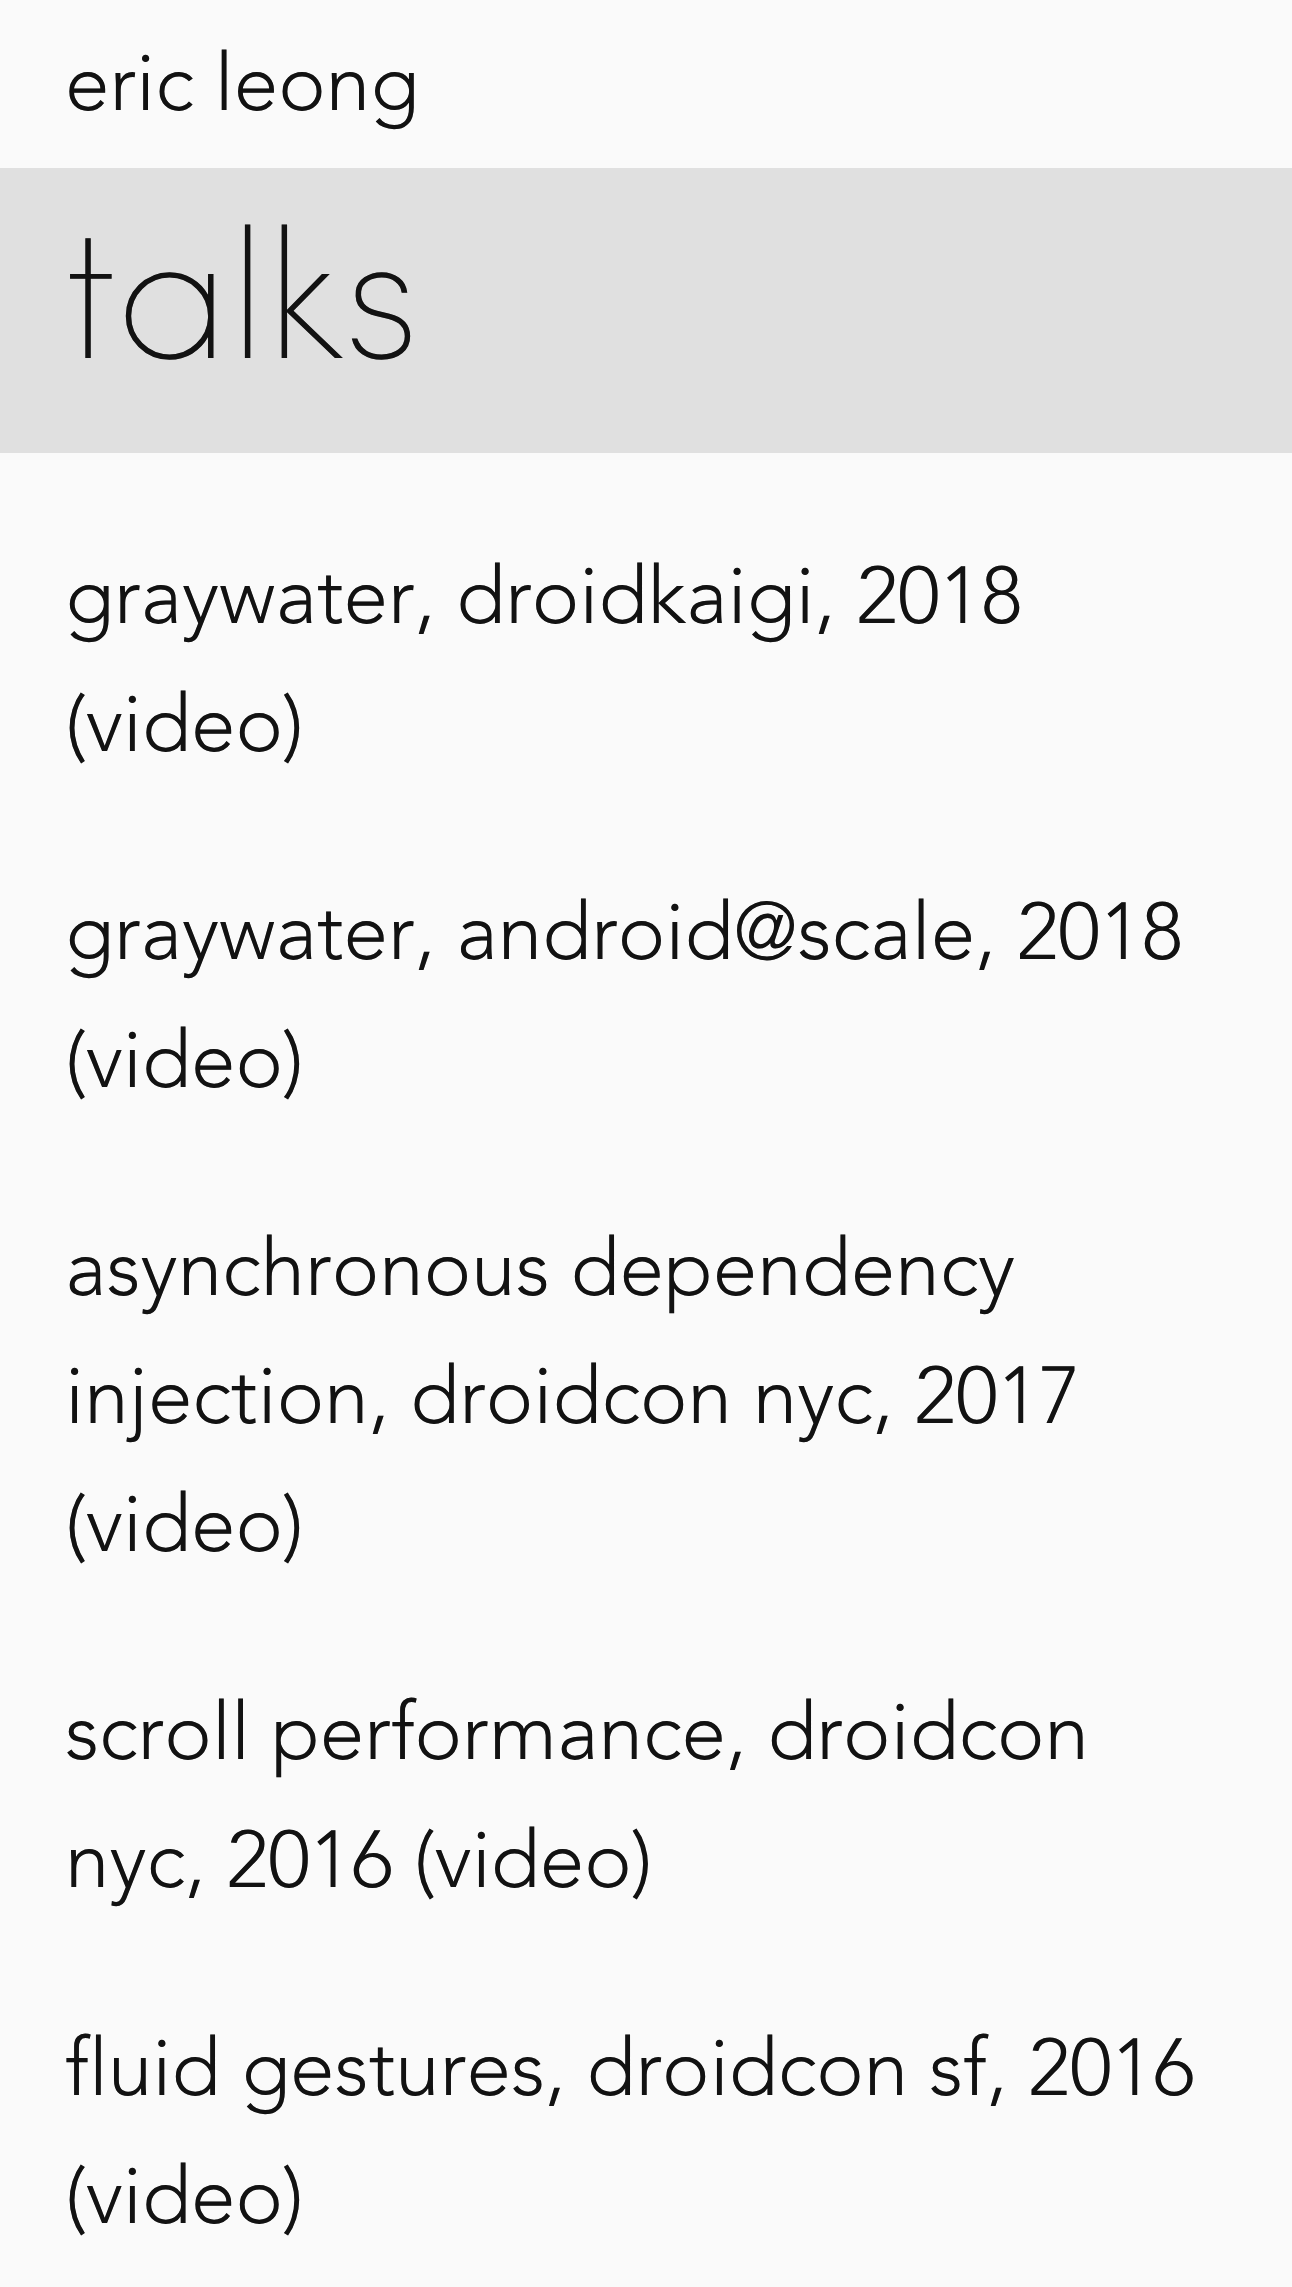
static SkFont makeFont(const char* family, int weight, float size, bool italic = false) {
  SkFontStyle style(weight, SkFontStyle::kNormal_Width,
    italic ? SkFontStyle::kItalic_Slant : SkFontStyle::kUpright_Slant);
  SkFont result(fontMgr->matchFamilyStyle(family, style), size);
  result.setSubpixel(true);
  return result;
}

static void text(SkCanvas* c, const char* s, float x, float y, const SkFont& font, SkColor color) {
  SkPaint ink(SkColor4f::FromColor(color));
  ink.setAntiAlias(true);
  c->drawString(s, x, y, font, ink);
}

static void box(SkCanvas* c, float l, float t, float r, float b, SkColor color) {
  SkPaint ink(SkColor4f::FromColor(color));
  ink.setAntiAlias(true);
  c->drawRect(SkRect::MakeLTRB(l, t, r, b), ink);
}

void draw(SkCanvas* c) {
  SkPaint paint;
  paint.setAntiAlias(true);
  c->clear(0xfffafafa);
  SkFont face1 = makeFont("Avenir", 300, 80);
  text(c, "eric leong", 65, 110, face1, 0xff121212);
  box(c, 0, 168, 1292, 453, 0xffe0e0e0);
  SkFont face2 = makeFont("Sofia", 200, 180);
  text(c, "talks", 65, 358, face2, 0xff121212);
  text(c, "graywater, droidkaigi, 2018", 65, 623, face1, 0xff121212);
  text(c, "(video)", 65, 751, face1, 0xff121212);
  text(c, "graywater, android@scale, 2018", 65, 959, face1, 0xff121212);
  text(c, "(video)", 65, 1087, face1, 0xff121212);
  text(c, "asynchronous dependency", 65, 1295, face1, 0xff121212);
  text(c, "injection, droidcon nyc, 2017", 65, 1423, face1, 0xff121212);
  text(c, "(video)", 65, 1551, face1, 0xff121212);
  text(c, "scroll performance, droidcon", 65, 1759, face1, 0xff121212);
  text(c, "nyc, 2016 (video)", 65, 1887, face1, 0xff121212);
  text(c, "fluid gestures, droidcon sf, 2016", 65, 2095, face1, 0xff121212);
  text(c, "(video)", 65, 2223, face1, 0xff121212);
}
